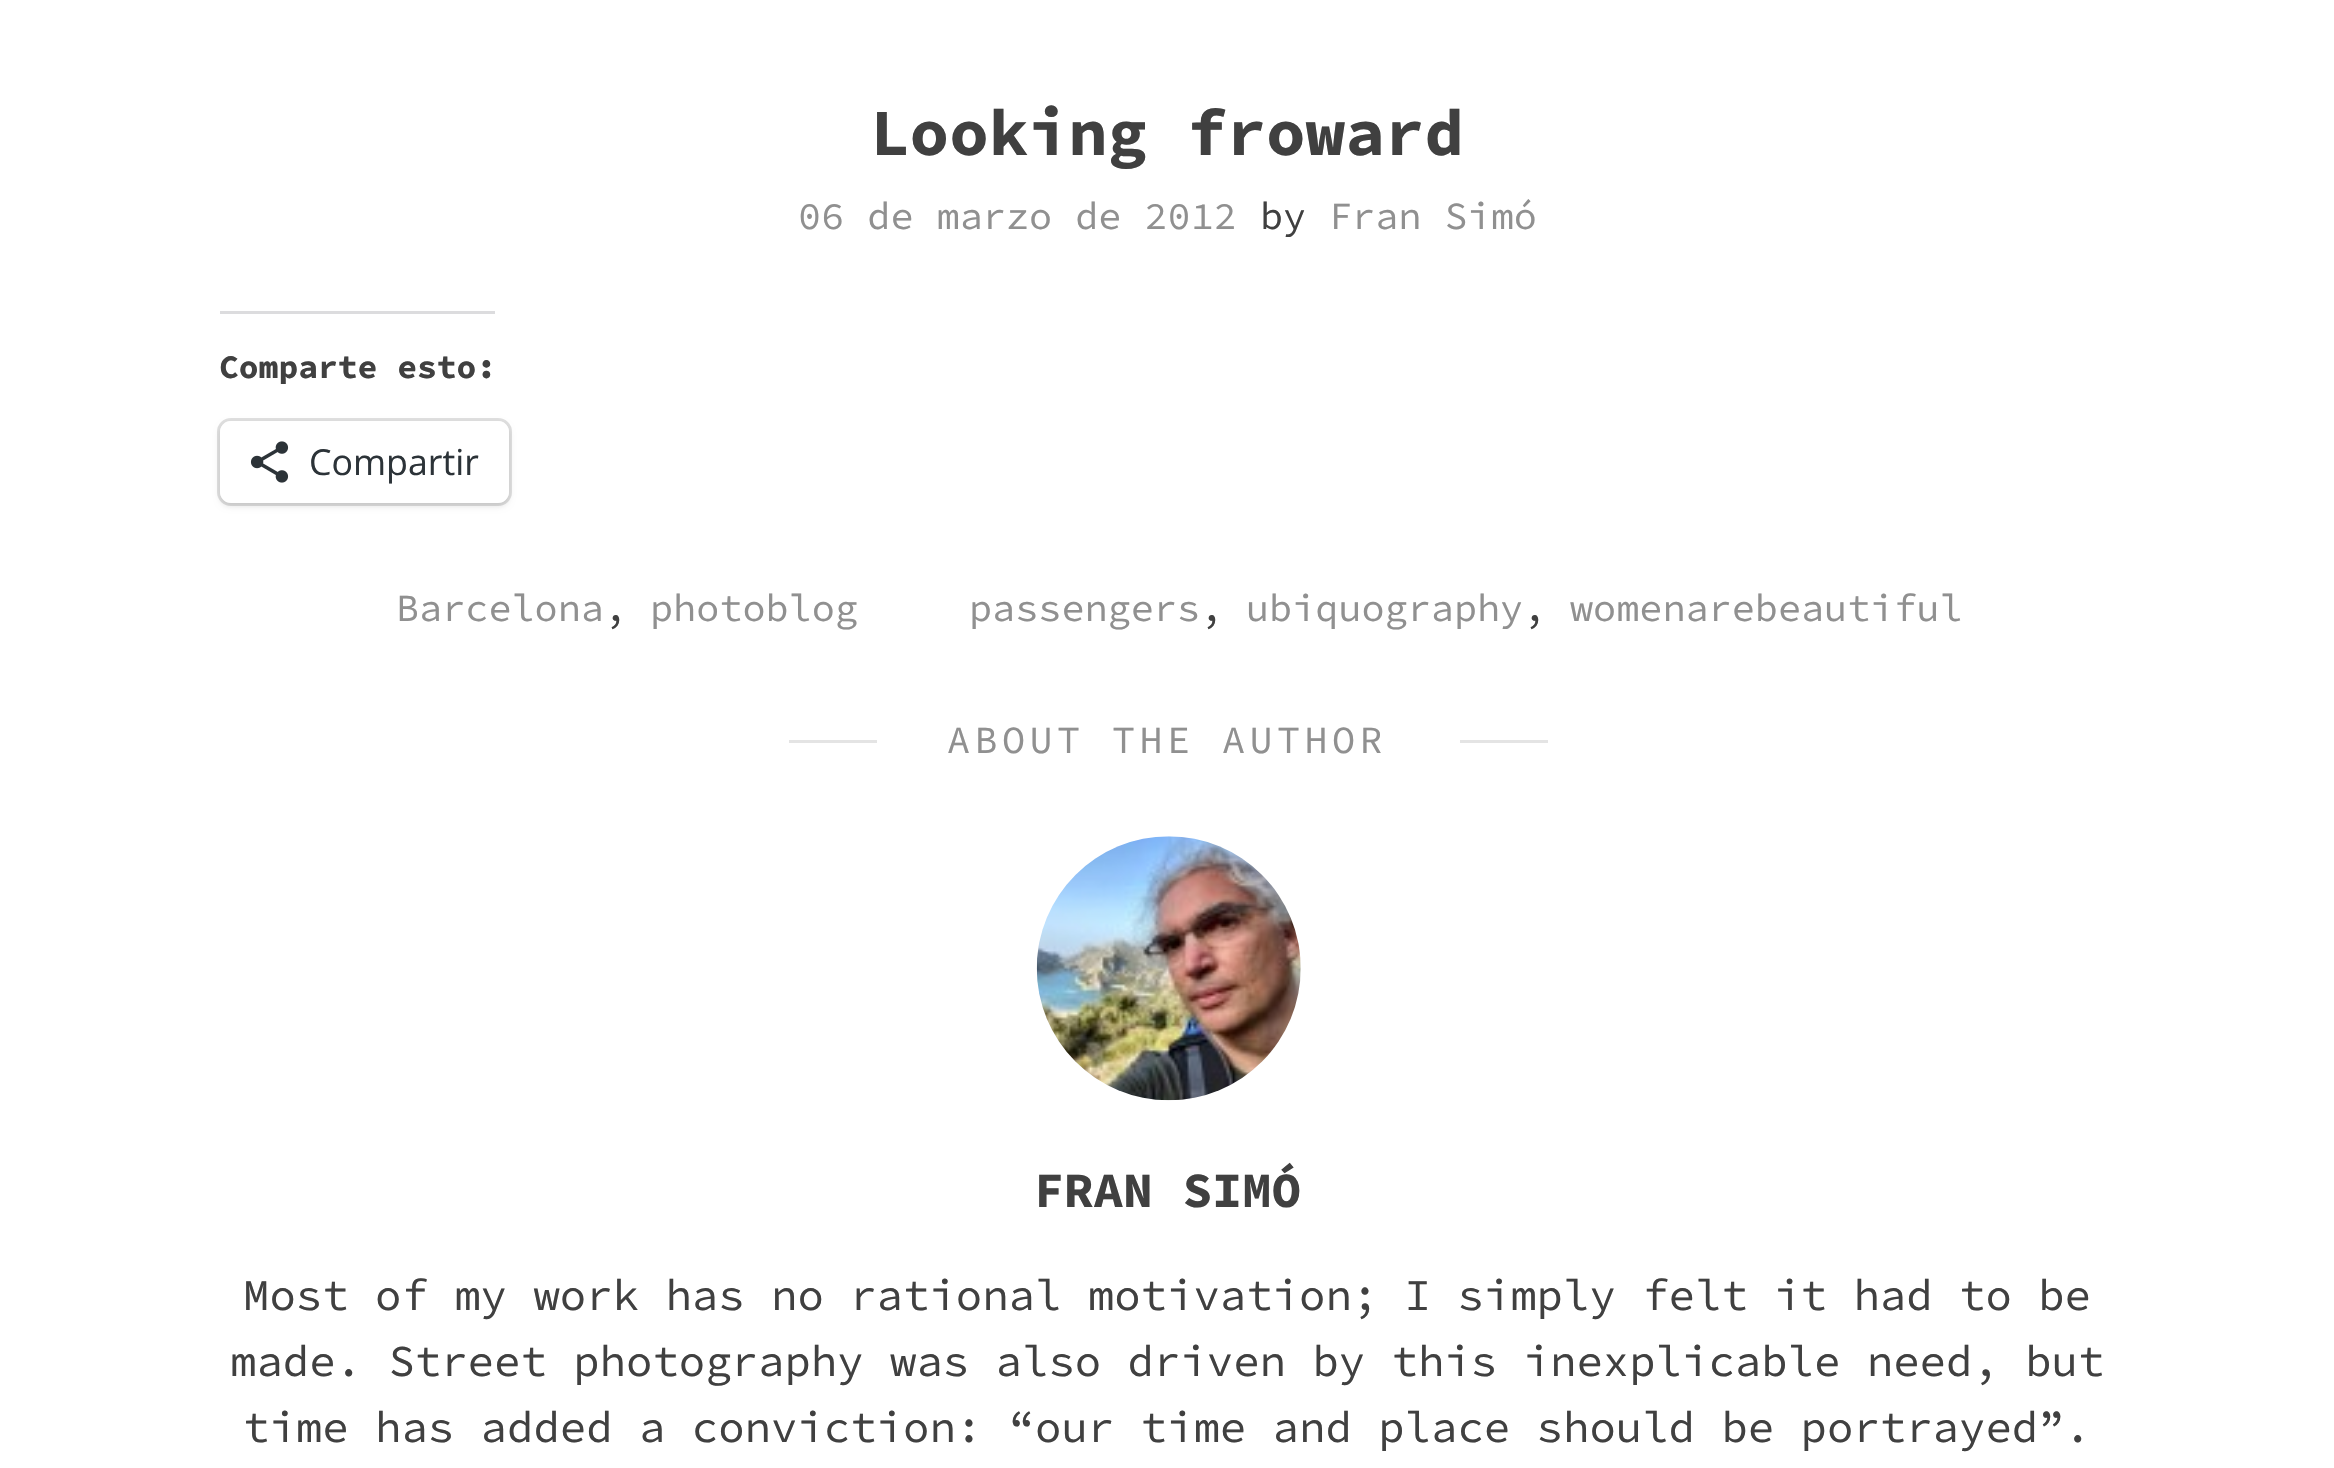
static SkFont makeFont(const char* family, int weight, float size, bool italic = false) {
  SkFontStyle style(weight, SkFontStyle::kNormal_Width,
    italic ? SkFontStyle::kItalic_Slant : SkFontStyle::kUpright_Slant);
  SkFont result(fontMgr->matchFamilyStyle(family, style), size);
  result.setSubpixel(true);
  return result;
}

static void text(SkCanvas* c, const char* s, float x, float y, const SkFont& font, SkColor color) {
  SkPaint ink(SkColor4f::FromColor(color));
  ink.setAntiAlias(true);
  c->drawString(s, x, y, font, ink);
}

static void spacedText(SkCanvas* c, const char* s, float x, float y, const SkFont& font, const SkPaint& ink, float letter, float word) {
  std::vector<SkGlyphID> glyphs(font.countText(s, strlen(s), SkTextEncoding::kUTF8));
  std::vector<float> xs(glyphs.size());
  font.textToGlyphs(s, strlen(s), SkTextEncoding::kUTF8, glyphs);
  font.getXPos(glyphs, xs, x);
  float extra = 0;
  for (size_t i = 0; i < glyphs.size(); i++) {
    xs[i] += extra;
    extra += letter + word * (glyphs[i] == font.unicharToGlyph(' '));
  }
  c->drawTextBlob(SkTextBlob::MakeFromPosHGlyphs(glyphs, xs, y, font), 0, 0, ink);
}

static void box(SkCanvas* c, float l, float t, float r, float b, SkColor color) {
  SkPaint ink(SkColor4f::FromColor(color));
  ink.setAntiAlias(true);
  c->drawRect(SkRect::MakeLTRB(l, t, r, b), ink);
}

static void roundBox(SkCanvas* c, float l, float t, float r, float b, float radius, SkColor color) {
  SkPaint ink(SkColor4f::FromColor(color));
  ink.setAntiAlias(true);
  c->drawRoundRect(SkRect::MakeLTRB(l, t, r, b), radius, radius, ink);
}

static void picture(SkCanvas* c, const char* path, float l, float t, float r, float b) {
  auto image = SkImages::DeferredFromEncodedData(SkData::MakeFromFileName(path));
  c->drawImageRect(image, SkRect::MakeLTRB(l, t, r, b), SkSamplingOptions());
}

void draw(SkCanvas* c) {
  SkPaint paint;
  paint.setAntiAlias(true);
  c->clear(0xffffffff);
  SkFont face1 = makeFont("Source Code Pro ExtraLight", 700, 66);
  text(c, "Looking froward", 870, 155, face1, 0xff404040);
  SkFont face2 = makeFont("Source Code Pro ExtraLight", 400, 38.5f);
  text(c, "06 de marzo de 2012", 798, 229, face2, 0xff909090);
  text(c, "by", 1260, 229, face2, 0xff404040);
  text(c, "Fran Simó", 1329, 229, face2, 0xff909090);
  box(c, 220, 311, 495, 314, 0xffdcdcde);
  SkFont face3 = makeFont("Source Code Pro ExtraLight", 700, 33);
  text(c, "Comparte esto:", 219, 378, face3, 0xff404040);
  paint.setStyle(SkPaint::kStroke_Style);
  paint.setStrokeWidth(3);
  paint.setColor(0xffe0e0e0);
  c->drawRoundRect(SkRect::MakeLTRB(218.5f, 419.5f, 510.5f, 504.5f), 12.5f, 12.5f, paint);
  paint.setStyle(SkPaint::kFill_Style);
  paint.setColor(0x1f000000);
  paint.setMaskFilter(SkMaskFilter::MakeBlur(kNormal_SkBlurStyle, 3));
  c->drawRoundRect(SkRect::MakeLTRB(220, 424, 509, 506), 11, 11, paint);
  paint.setMaskFilter(nullptr);
  roundBox(c, 220, 421, 509, 503, 11, 0xffffffff);
  picture(c, "img_01.png", 250, 441, 289, 483);
  SkFont face4 = makeFont("Open Sans", 400, 35.75f);
  text(c, "Compartir", 309, 475, face4, 0xff2c3338);
  text(c, "Barcelona", 396, 621, face2, 0xff909090);
  text(c, ",", 604, 621, face2, 0xff404040);
  text(c, "photoblog", 650, 621, face2, 0xff909090);
  text(c, "passengers", 969, 621, face2, 0xff909090);
  text(c, ",", 1200, 621, face2, 0xff404040);
  text(c, "ubiquography", 1246, 621, face2, 0xff909090);
  text(c, ",", 1523, 621, face2, 0xff404040);
  text(c, "womenarebeautiful", 1570, 621, face2, 0xff909090);
  box(c, 789, 740, 877, 743, 0xffe4e4e4);
  paint.setColor(0xff909090);
  spacedText(c, "ABOUT THE AUTHOR", 947, 753, face2, paint, 4.4f, 0);
  box(c, 1460, 740, 1548, 743, 0xffe4e4e4);
  picture(c, "img_02.png", 1036, 836, 1301, 1101);
  SkFont face5 = makeFont("Source Code Pro ExtraLight", 700, 49.5f);
  text(c, "FRAN SIMÓ", 1034, 1207, face5, 0xff404040);
  SkFont face6 = makeFont("Source Code Pro ExtraLight", 400, 44);
  text(c, "Most of my work has no rational motivation; I simply felt it had to be", 243, 1310, face6, 0xff404040);
  text(c, "made. Street photography was also driven by this inexplicable need, but", 230, 1376, face6, 0xff404040);
  text(c, "time has added a conviction: “our time and place should be portrayed”.", 243, 1442, face6, 0xff404040);
}
